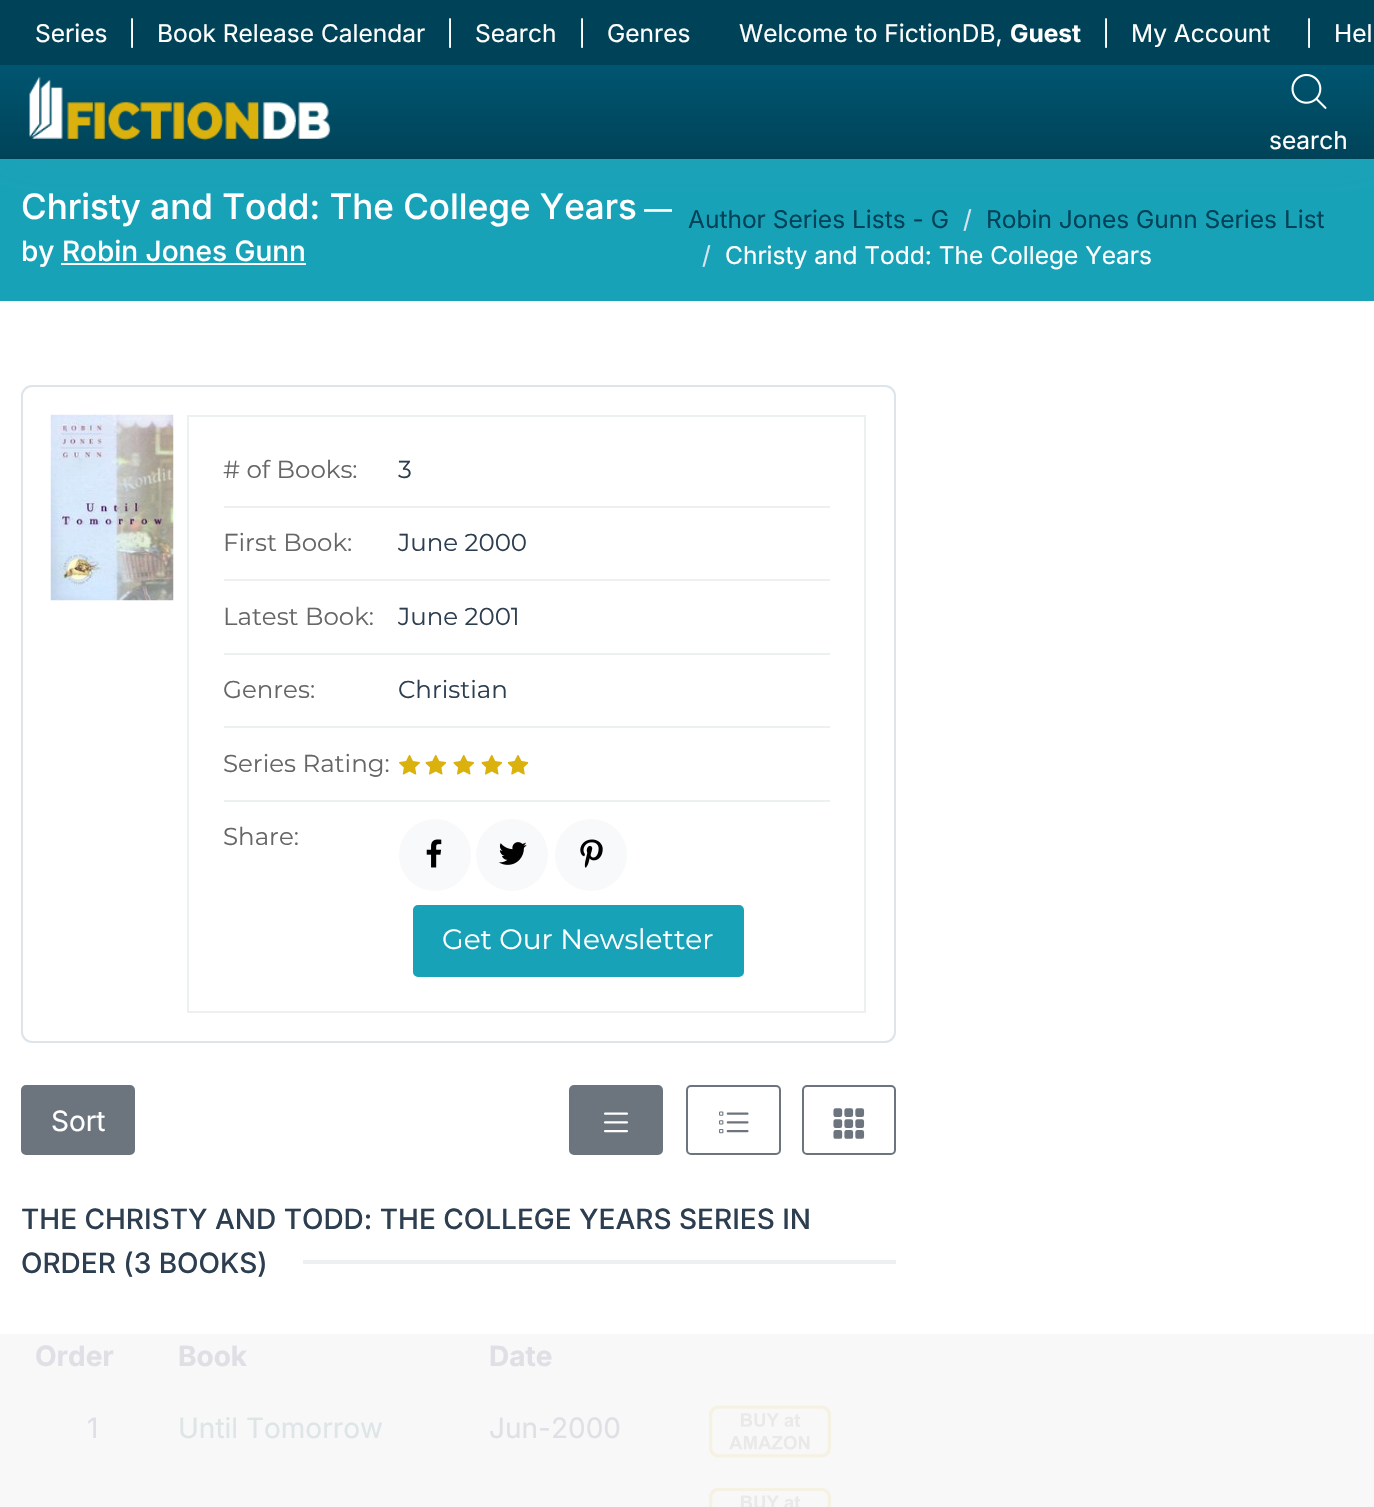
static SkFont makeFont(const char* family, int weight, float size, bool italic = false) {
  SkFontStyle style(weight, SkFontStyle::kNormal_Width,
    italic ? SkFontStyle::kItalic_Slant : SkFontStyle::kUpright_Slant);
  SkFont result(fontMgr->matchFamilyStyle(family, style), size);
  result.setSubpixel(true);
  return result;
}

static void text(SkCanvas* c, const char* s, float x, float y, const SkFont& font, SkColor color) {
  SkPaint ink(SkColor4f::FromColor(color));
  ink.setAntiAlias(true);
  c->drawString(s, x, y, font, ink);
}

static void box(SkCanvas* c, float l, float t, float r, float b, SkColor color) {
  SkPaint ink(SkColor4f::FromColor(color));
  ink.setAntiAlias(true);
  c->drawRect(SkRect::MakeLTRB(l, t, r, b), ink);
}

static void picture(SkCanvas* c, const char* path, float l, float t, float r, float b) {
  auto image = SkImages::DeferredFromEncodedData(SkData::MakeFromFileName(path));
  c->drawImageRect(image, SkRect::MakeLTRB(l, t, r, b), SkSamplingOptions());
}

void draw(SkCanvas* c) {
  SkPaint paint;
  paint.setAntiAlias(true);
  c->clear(0xffffffff);
  box(c, 0, 1334, 1374, 1507, 0xfff8f8f8);
  box(c, 0, 159, 1374, 301, 0xff17a2b8);
  paint.setColor(0x1a8c98a4);
  paint.setMaskFilter(SkMaskFilter::MakeBlur(kNormal_SkBlurStyle, 22));
  c->drawRect(SkRect::MakeLTRB(0, 0, 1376, 159), paint);
  paint.setMaskFilter(nullptr);
  {
    const SkColor colors[] = {0xff006281, 0xff004358};
    const float stops[] = {0, 1};
    const SkPoint ends[] = {{688, 0}, {688, 159}};
    paint.setShader(SkGradientShader::MakeLinear(ends, colors, stops, 2, SkTileMode::kClamp));
    paint.setAlpha(255);
  }
  c->drawRect(SkRect::MakeLTRB(0, 65, 1374, 159), paint);
  box(c, 0, 0, 1374, 65, 0xff004358);
  SkFont face1 = makeFont("Inter", 400, 24.5f);
  text(c, "Series", 35, 42, face1, 0xffffffff);
  text(c, "|", 128, 42, face1, 0xffffffff);
  text(c, "Book Release Calendar", 157, 42, face1, 0xffffffff);
  text(c, "|", 446, 42, face1, 0xffffffff);
  text(c, "Search", 475, 42, face1, 0xffffffff);
  text(c, "|", 578, 42, face1, 0xffffffff);
  text(c, "Genres", 607, 42, face1, 0xffffffff);
  text(c, "Welcome to FictionDB,", 739, 42, face1, 0xffffffff);
  SkFont face2 = makeFont("Inter", 700, 24.5f);
  text(c, "Guest", 1010, 42, face2, 0xffffffff);
  text(c, "|", 1102, 42, face1, 0xffffffff);
  text(c, "My Account", 1131, 42, face1, 0xffffffff);
  text(c, "|", 1305, 42, face1, 0xffffffff);
  text(c, "Hel", 1334, 42, face1, 0xffffffff);
  picture(c, "img_01.png", 29, 76, 331, 141);
  picture(c, "img_02.png", 1291, 73, 1327, 109);
  text(c, "search", 1269, 149, face1, 0xffffffff);
  SkFont face3 = makeFont("Inter", 500, 35);
  text(c, "Christy and Todd: The College Years", 21, 219, face3, 0xffffffff);
  SkFont face4 = makeFont("Inter", 500, 28);
  text(c, "—", 644, 219, face4, 0xffffffff);
  text(c, "by Robin Jones Gunn", 21, 261, face4, 0xffffffff);
  box(c, 61, 263, 306, 265, 0xffffffff);
  text(c, "Author Series Lists - G", 688, 228, face1, 0xff004358);
  text(c, "/", 963, 228, face1, 0xffd9e2ef);
  text(c, "Robin Jones Gunn Series List", 986, 228, face1, 0xff004358);
  text(c, "/", 702, 264, face1, 0xffd9e2ef);
  text(c, "Christy and Todd: The College Years", 725, 264, face1, 0xffffffff);
  paint.setStyle(SkPaint::kStroke_Style);
  paint.setStrokeWidth(2);
  paint.setShader(nullptr);
  paint.setColor(0xffdde4ea);
  c->drawRoundRect(SkRect::MakeLTRB(22, 386, 895, 1042), 10, 10, paint);
  picture(c, "img_03.png", 50, 414, 174, 601);
  paint.setColor(0xffecf0f1);
  c->drawRect(SkRect::MakeLTRB(188, 416, 865, 1012), paint);
  box(c, 224, 506, 830, 508, 0xffecf0f1);
  SkFont face5 = makeFont("Montserrat", 400, 24.5f);
  text(c, "# of Books:", 223, 478, face5, 0xff666666);
  text(c, "3", 398, 478, face5, 0xff2c3e50);
  box(c, 224, 579, 830, 581, 0xffecf0f1);
  text(c, "First Book:", 223, 551, face5, 0xff666666);
  text(c, "June 2000", 398, 551, face5, 0xff2c3e50);
  box(c, 224, 653, 830, 655, 0xffecf0f1);
  text(c, "Latest Book:", 223, 625, face5, 0xff666666);
  text(c, "June 2001", 398, 625, face5, 0xff2c3e50);
  box(c, 224, 726, 830, 728, 0xffecf0f1);
  text(c, "Genres:", 223, 698, face5, 0xff666666);
  text(c, "Christian", 398, 698, face5, 0xff2c3e50);
  box(c, 224, 800, 830, 802, 0xffecf0f1);
  text(c, "Series Rating:", 223, 772, face5, 0xff666666);
  picture(c, "img_04.png", 399, 755, 420, 775);
  picture(c, "img_05.png", 425, 755, 446, 775);
  picture(c, "img_05.png", 453, 755, 474, 775);
  picture(c, "img_05.png", 481, 755, 502, 775);
  picture(c, "img_06.png", 507, 755, 529, 775);
  text(c, "Share:", 223, 845, face5, 0xff666666);
  paint.setStyle(SkPaint::kFill_Style);
  paint.setColor(0xfff8f9fa);
  c->drawCircle(435, 855, 36, paint);
  picture(c, "img_07.png", 426, 839, 442, 868);
  c->drawCircle(512, 855, 36, paint);
  picture(c, "img_08.png", 498, 842, 527, 865);
  c->drawCircle(591, 855, 36, paint);
  picture(c, "img_09.png", 580, 839, 603, 868);
  paint.setColor(0xff17a2b8);
  c->drawRoundRect(SkRect::MakeLTRB(414, 906, 743, 976), 4, 4, paint);
  paint.setStyle(SkPaint::kStroke_Style);
  c->drawRoundRect(SkRect::MakeLTRB(414, 906, 743, 976), 4, 4, paint);
  SkFont face6 = makeFont("Montserrat", 400, 28);
  text(c, "Get Our Newsletter", 442, 949, face6, 0xffffffff);
  paint.setStyle(SkPaint::kFill_Style);
  paint.setColor(0xff6c757d);
  c->drawRoundRect(SkRect::MakeLTRB(22, 1086, 134, 1154), 4, 4, paint);
  paint.setStyle(SkPaint::kStroke_Style);
  c->drawRoundRect(SkRect::MakeLTRB(22, 1086, 134, 1154), 4, 4, paint);
  SkFont face7 = makeFont("Inter", 400, 28);
  text(c, "Sort", 51, 1131, face7, 0xffffffff);
  paint.setStyle(SkPaint::kFill_Style);
  c->drawRoundRect(SkRect::MakeLTRB(570, 1086, 662, 1154), 4, 4, paint);
  paint.setStyle(SkPaint::kStroke_Style);
  c->drawRoundRect(SkRect::MakeLTRB(570, 1086, 662, 1154), 4, 4, paint);
  picture(c, "img_10.png", 604, 1112, 628, 1133);
  c->drawRoundRect(SkRect::MakeLTRB(687, 1086, 780, 1154), 4, 4, paint);
  picture(c, "img_11.png", 719, 1111, 749, 1134);
  c->drawRoundRect(SkRect::MakeLTRB(803, 1086, 895, 1154), 4, 4, paint);
  picture(c, "img_12.png", 833, 1108, 865, 1139);
  text(c, "THE CHRISTY AND TODD: THE COLLEGE YEARS SERIES IN", 21, 1229, face4, 0xff2c3e50);
  text(c, "ORDER (3 BOOKS)", 21, 1273, face4, 0xff2c3e50);
  box(c, 303, 1260, 896, 1264, 0xffecf0f1);
  SkFont face8 = makeFont("Inter", 700, 28);
  text(c, "Order", 35, 1366, face8, 0xffe1dfe6);
  text(c, "Book", 178, 1366, face8, 0xffe1dfe6);
  text(c, "Date", 489, 1366, face8, 0xffe1dfe6);
  text(c, "1", 87, 1438, face7, 0xffe1dfe6);
  text(c, "Until Tomorrow", 178, 1438, face7, 0xffdee5e7);
  text(c, "Jun-2000", 489, 1438, face7, 0xffe1dfe6);
  picture(c, "img_13.png", 709, 1405, 831, 1458);
  picture(c, "img_14.png", 709, 1488, 831, 1507);
}
